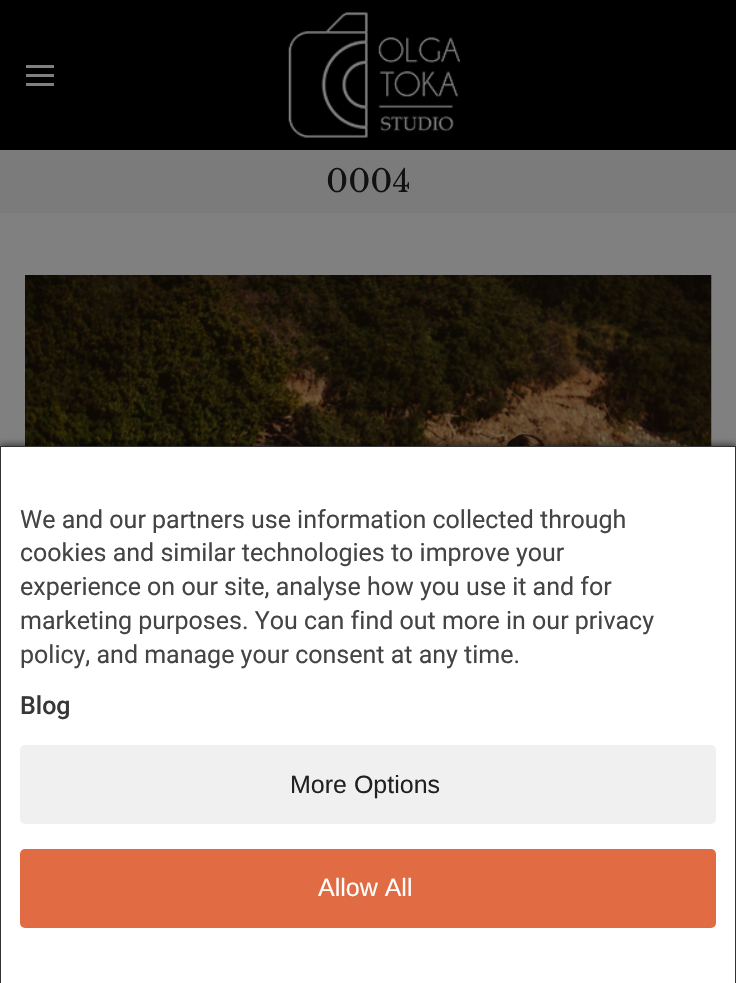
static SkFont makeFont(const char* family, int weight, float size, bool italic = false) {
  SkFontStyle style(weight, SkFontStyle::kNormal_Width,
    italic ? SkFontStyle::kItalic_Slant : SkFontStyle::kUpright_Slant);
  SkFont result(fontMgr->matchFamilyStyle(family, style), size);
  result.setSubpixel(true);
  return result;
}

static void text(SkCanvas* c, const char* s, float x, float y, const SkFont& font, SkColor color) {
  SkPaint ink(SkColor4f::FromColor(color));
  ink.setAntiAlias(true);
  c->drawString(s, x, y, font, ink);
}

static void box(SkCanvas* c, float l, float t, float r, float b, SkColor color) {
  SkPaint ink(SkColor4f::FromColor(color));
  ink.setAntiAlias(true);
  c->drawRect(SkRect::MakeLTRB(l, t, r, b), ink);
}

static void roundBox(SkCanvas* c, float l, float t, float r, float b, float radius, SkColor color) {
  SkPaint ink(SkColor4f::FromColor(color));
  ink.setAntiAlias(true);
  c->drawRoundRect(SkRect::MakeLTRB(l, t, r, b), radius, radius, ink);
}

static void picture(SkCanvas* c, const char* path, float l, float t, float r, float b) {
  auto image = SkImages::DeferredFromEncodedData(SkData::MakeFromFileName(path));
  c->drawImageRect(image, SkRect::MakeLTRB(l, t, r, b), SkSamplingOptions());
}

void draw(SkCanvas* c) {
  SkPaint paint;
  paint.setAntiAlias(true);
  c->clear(0xff808080);
  box(c, 0, 0, 736, 150, 0xff000000);
  box(c, 26, 65, 54, 68, 0xff808080);
  box(c, 26, 74, 54, 77, 0xff808080);
  box(c, 26, 83, 54, 86, 0xff808080);
  picture(c, "img_01.png", 288, 12, 460, 138);
  box(c, 0, 150, 736, 213, 0xff7b7b7b);
  SkFont face1 = makeFont("Libre Baskerville", 400, 31);
  text(c, "0004", 326, 192, face1, 0xff111111);
  picture(c, "img_02.png", 25, 275, 712, 446);
  paint.setColor(0x80000000);
  paint.setMaskFilter(SkMaskFilter::MakeBlur(kNormal_SkBlurStyle, 3));
  c->drawRect(SkRect::MakeLTRB(0, 444, 736, 981), paint);
  paint.setMaskFilter(nullptr);
  paint.setColor(0xffffffff);
  c->drawRect(SkRect::MakeLTRB(0.5f, 446.5f, 735.5f, 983.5f), paint);
  paint.setStyle(SkPaint::kStroke_Style);
  paint.setStrokeWidth(1);
  paint.setColor(0xff333333);
  c->drawRect(SkRect::MakeLTRB(0.5f, 446.5f, 735.5f, 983.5f), paint);
  SkFont face2 = makeFont("Roboto", 400, 25);
  text(c, "We and our partners use information collected through", 20, 528, face2, 0xff444444);
  text(c, "cookies and similar technologies to improve your", 20, 561, face2, 0xff444444);
  text(c, "experience on our site, analyse how you use it and for", 20, 595, face2, 0xff444444);
  text(c, "marketing purposes. You can find out more in our privacy", 20, 629, face2, 0xff444444);
  text(c, "policy, and manage your consent at any time.", 20, 663, face2, 0xff444444);
  SkFont face3 = makeFont("Roboto", 500, 25);
  text(c, "Blog", 20, 714, face3, 0xff373737);
  roundBox(c, 20, 745, 716, 824, 5, 0xfff0f0f0);
  SkFont face4 = makeFont("Liberation Sans", 400, 25);
  text(c, "More Options", 290, 793, face4, 0xff212121);
  roundBox(c, 20, 849, 716, 928, 5, 0xffe16b43);
  text(c, "Allow All", 318, 896, face4, 0xffffffff);
}
